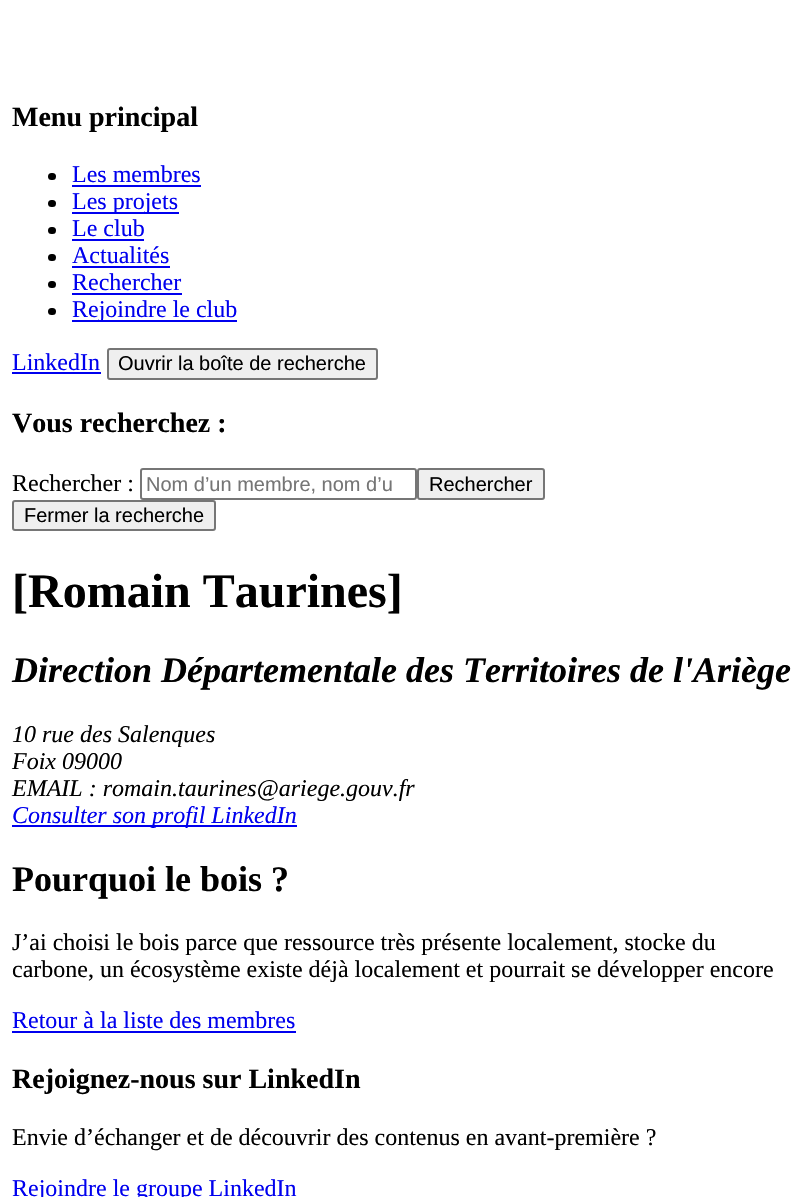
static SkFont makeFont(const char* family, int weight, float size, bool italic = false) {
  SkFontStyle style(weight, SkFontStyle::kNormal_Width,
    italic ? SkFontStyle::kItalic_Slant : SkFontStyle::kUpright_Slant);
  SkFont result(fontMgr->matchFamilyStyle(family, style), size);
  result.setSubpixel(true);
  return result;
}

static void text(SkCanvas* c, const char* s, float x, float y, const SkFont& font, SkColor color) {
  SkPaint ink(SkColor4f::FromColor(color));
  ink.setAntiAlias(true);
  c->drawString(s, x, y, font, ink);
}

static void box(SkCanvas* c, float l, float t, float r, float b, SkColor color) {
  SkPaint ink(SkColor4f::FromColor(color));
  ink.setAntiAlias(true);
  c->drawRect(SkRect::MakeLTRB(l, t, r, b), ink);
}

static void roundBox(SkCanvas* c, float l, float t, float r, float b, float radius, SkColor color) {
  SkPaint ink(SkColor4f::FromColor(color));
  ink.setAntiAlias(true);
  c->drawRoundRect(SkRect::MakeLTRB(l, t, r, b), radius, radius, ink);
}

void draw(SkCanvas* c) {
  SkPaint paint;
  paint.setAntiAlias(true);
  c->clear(0xffffffff);
  SkFont face1 = makeFont("Liberation Serif", 700, 28);
  text(c, "Menu principal", 12, 126, face1, 0xff000000);
  roundBox(c, 48, 173, 56, 180, 3.5f, 0xff000000);
  SkFont face2 = makeFont("Liberation Serif", 400, 24);
  text(c, "Les membres", 72, 182, face2, 0xff0000ee);
  box(c, 72, 185, 201, 187, 0xff0000ee);
  roundBox(c, 48, 200, 56, 207, 3.5f, 0xff000000);
  box(c, 72, 212, 179, 214, 0xff0000ee);
  text(c, "Les projets", 72, 209, face2, 0xff0000ee);
  roundBox(c, 48, 227, 56, 234, 3.5f, 0xff000000);
  text(c, "Le club", 72, 236, face2, 0xff0000ee);
  box(c, 72, 239, 144, 241, 0xff0000ee);
  roundBox(c, 48, 254, 56, 261, 3.5f, 0xff000000);
  text(c, "Actualités", 72, 263, face2, 0xff0000ee);
  box(c, 72, 266, 170, 268, 0xff0000ee);
  roundBox(c, 48, 281, 56, 288, 3.5f, 0xff000000);
  text(c, "Rechercher", 72, 290, face2, 0xff0000ee);
  box(c, 72, 293, 182, 295, 0xff0000ee);
  roundBox(c, 48, 308, 56, 315, 3.5f, 0xff000000);
  box(c, 72, 320, 237, 322, 0xff0000ee);
  text(c, "Rejoindre le club", 72, 317, face2, 0xff0000ee);
  text(c, "LinkedIn", 12, 370, face2, 0xff0000ee);
  box(c, 12, 372, 101, 374, 0xff0000ee);
  paint.setColor(0xffefefef);
  c->drawRoundRect(SkRect::MakeLTRB(108, 349, 377, 379), 2, 2, paint);
  paint.setStyle(SkPaint::kStroke_Style);
  paint.setStrokeWidth(2);
  paint.setColor(0xff767676);
  c->drawRoundRect(SkRect::MakeLTRB(108, 349, 377, 379), 2, 2, paint);
  SkFont face3 = makeFont("Liberation Sans", 400, 20);
  text(c, "Ouvrir la boîte de recherche", 118, 370, face3, 0xff000000);
  text(c, "Vous recherchez :", 12, 432, face1, 0xff000000);
  text(c, "Rechercher :", 12, 491, face2, 0xff000000);
  c->drawRoundRect(SkRect::MakeLTRB(141, 469, 416, 499), 2, 2, paint);
  text(c, "Nom d’un membre, nom d’u", 146, 491, face3, 0xff757575);
  paint.setStyle(SkPaint::kFill_Style);
  paint.setColor(0xffefefef);
  c->drawRoundRect(SkRect::MakeLTRB(418, 469, 544, 499), 2, 2, paint);
  paint.setStyle(SkPaint::kStroke_Style);
  paint.setColor(0xff767676);
  c->drawRoundRect(SkRect::MakeLTRB(418, 469, 544, 499), 2, 2, paint);
  text(c, "Rechercher", 429, 491, face3, 0xff000000);
  paint.setStyle(SkPaint::kFill_Style);
  paint.setColor(0xffefefef);
  c->drawRoundRect(SkRect::MakeLTRB(13, 501, 215, 530), 2, 2, paint);
  paint.setStyle(SkPaint::kStroke_Style);
  paint.setColor(0xff767676);
  c->drawRoundRect(SkRect::MakeLTRB(13, 501, 215, 530), 2, 2, paint);
  text(c, "Fermer la recherche", 24, 522, face3, 0xff000000);
  SkFont face4 = makeFont("Liberation Serif", 700, 48);
  text(c, "[Romain Taurines]", 12, 607, face4, 0xff000000);
  SkFont face5 = makeFont("Liberation Serif", 700, 36, true);
  text(c, "Direction Départementale des Territoires de l'Ariège", 12, 682, face5, 0xff000000);
  SkFont face6 = makeFont("Liberation Serif", 400, 24, true);
  text(c, "10 rue des Salenques", 12, 742, face6, 0xff000000);
  text(c, "Foix 09000", 12, 769, face6, 0xff000000);
  text(c, "EMAIL : romain.taurines@ariege.gouv.fr", 12, 796, face6, 0xff000000);
  box(c, 12, 825, 297, 827, 0xff0000ee);
  text(c, "Consulter son profil LinkedIn", 12, 823, face6, 0xff0000ee);
  SkFont face7 = makeFont("Liberation Serif", 700, 36);
  text(c, "Pourquoi le bois ?", 12, 891, face7, 0xff000000);
  text(c, "J’ai choisi le bois parce que ressource très présente localement, stocke du", 12, 950, face2, 0xff000000);
  text(c, "carbone, un écosystème existe déjà localement et pourrait se développer encore", 12, 977, face2, 0xff000000);
  text(c, "Retour à la liste des membres", 12, 1028, face2, 0xff0000ee);
  box(c, 12, 1031, 296, 1033, 0xff0000ee);
  text(c, "Rejoignez-nous sur LinkedIn", 12, 1088, face1, 0xff000000);
  text(c, "Envie d’échanger et de découvrir des contenus en avant-première ?", 12, 1145, face2, 0xff000000);
  text(c, "Rejoindre le groupe LinkedIn", 12, 1196, face2, 0xff0000ee);
}
